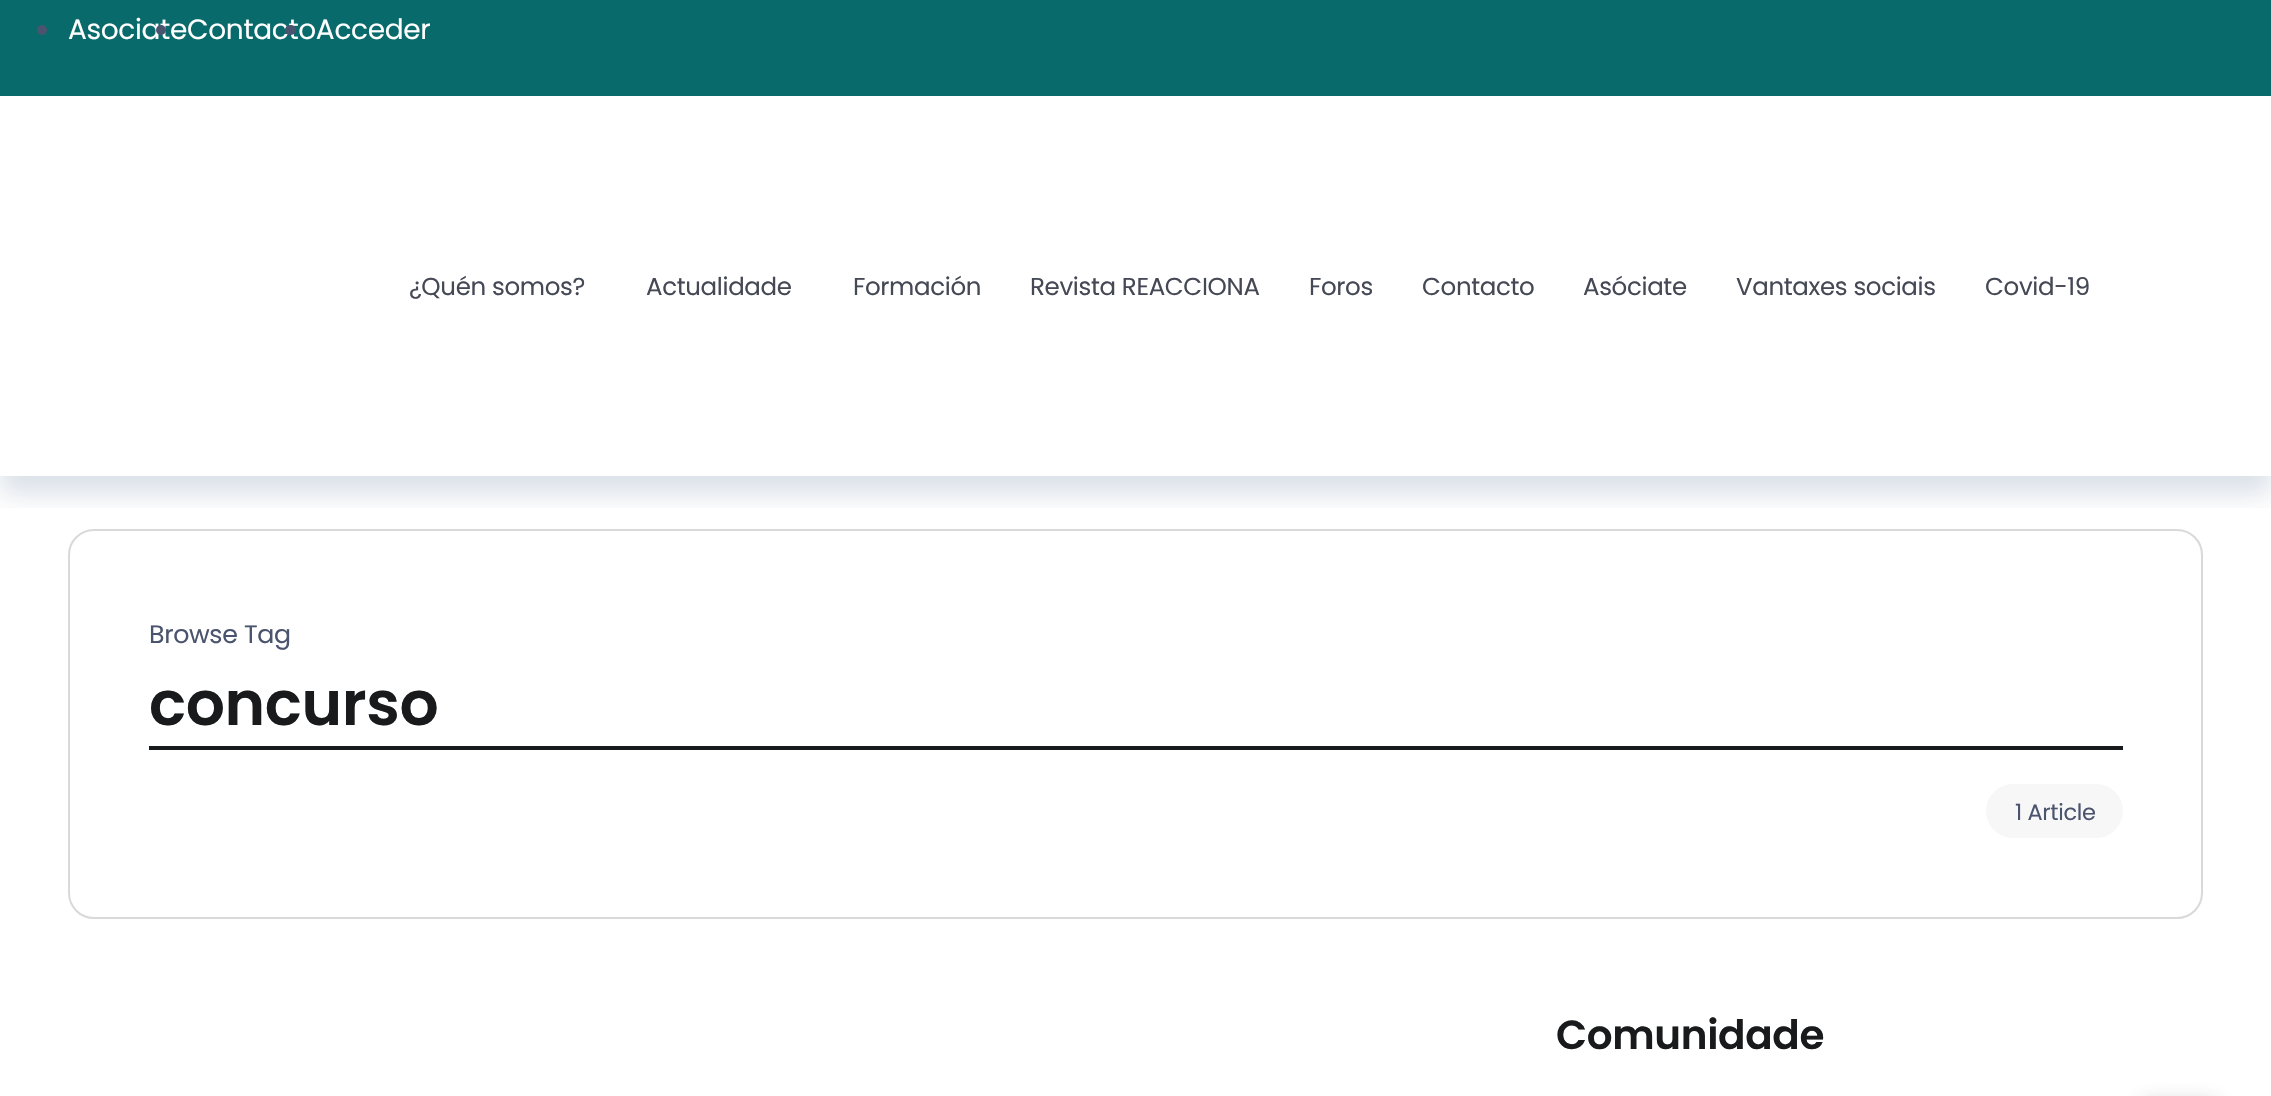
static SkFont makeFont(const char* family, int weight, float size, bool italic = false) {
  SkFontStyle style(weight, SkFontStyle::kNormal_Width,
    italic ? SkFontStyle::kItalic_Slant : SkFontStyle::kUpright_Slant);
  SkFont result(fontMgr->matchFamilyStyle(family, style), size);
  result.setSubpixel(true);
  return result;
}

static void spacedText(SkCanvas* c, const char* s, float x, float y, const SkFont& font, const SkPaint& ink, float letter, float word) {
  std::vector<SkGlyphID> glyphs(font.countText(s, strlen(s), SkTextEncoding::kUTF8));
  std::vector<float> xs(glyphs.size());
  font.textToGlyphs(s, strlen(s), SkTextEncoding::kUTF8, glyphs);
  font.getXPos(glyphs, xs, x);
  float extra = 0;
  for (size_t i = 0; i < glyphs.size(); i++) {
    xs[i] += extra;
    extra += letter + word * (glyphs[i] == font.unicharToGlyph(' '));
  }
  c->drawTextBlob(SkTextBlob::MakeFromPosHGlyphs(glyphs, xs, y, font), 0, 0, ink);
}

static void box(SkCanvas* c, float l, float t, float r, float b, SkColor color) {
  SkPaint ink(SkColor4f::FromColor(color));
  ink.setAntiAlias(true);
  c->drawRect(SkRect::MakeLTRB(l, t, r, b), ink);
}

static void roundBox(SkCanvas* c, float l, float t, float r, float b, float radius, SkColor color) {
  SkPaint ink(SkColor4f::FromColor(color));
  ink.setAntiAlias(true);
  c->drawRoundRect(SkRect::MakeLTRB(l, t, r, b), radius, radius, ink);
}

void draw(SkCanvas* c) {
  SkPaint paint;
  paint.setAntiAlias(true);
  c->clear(0xffffffff);
  box(c, 0, 0, 2271, 96, 0xff096a6b);
  paint.setColor(0xff4b546e);
  c->drawCircle(42, 30, 5, paint);
  SkFont face1 = makeFont("Poppins", 400, 28);
  paint.setColor(0xffffffff);
  spacedText(c, "AsociateContactoAcceder", 68, 39, face1, paint, -0.35f, 0);
  paint.setColor(0xff4b546e);
  c->drawCircle(161, 30, 5, paint);
  roundBox(c, 285, 25, 296, 35, 5, 0xff4b546e);
  paint.setStyle(SkPaint::kStroke_Style);
  paint.setStrokeWidth(2);
  paint.setColor(0xffd9d9da);
  c->drawRoundRect(SkRect::MakeLTRB(69, 530, 2202, 918), 25, 25, paint);
  c->save();
  c->clipRect(SkRect::MakeLTRB(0, 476, 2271, 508));
  paint.setStyle(SkPaint::kFill_Style);
  paint.setColor(0x26043163);
  paint.setMaskFilter(SkMaskFilter::MakeBlur(kNormal_SkBlurStyle, 13));
  c->drawRect(SkRect::MakeLTRB(0, 114, 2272, 494), paint);
  paint.setMaskFilter(nullptr);
  c->restore();
  SkFont face2 = makeFont("Poppins", 400, 24.5f);
  paint.setColor(0xff454955);
  spacedText(c, "¿Quén somos?", 409, 295, face2, paint, -0.35f, 0);
  spacedText(c, "Actualidade", 646, 295, face2, paint, -0.35f, 0);
  spacedText(c, "Formación", 853, 295, face2, paint, -0.35f, 0);
  spacedText(c, "Revista REACCIONA", 1030, 295, face2, paint, -0.35f, 0);
  spacedText(c, "Foros", 1309, 295, face2, paint, -0.35f, 0);
  spacedText(c, "Contacto", 1422, 295, face2, paint, -0.35f, 0);
  spacedText(c, "Asóciate", 1583, 295, face2, paint, -0.35f, 0);
  spacedText(c, "Vantaxes sociais", 1736, 295, face2, paint, -0.35f, 0);
  spacedText(c, "Covid-19", 1985, 295, face2, paint, -0.35f, 0);
  SkFont face3 = makeFont("Poppins", 400, 25.25f);
  paint.setColor(0xff4b546e);
  spacedText(c, "Browse Tag", 149, 643, face3, paint, -0.35f, 0);
  box(c, 149, 746, 2123, 750, 0xff191a1b);
  SkFont face4 = makeFont("Poppins", 600, 61.5f);
  paint.setColor(0xff191a1b);
  spacedText(c, "concurso", 149, 725, face4, paint, -0.35f, 0);
  roundBox(c, 1986, 784, 2123, 838, 27, 0xfff7f7f7);
  SkFont face5 = makeFont("Poppins", 400, 22.5f);
  paint.setColor(0xff4b546e);
  spacedText(c, "1 Article", 2015, 820, face5, paint, -0.35f, 0);
  SkFont face6 = makeFont("Poppins", 600, 40.5f);
  paint.setColor(0xff191a1b);
  spacedText(c, "Comunidade", 1556, 1049, face6, paint, -0.35f, 0);
  paint.setColor(0x3d28292f);
  paint.setMaskFilter(SkMaskFilter::MakeBlur(kNormal_SkBlurStyle, 10.5f));
  c->drawRoundRect(SkRect::MakeLTRB(2140, 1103, 2219, 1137), 9, 9, paint);
  paint.setMaskFilter(nullptr);
}
